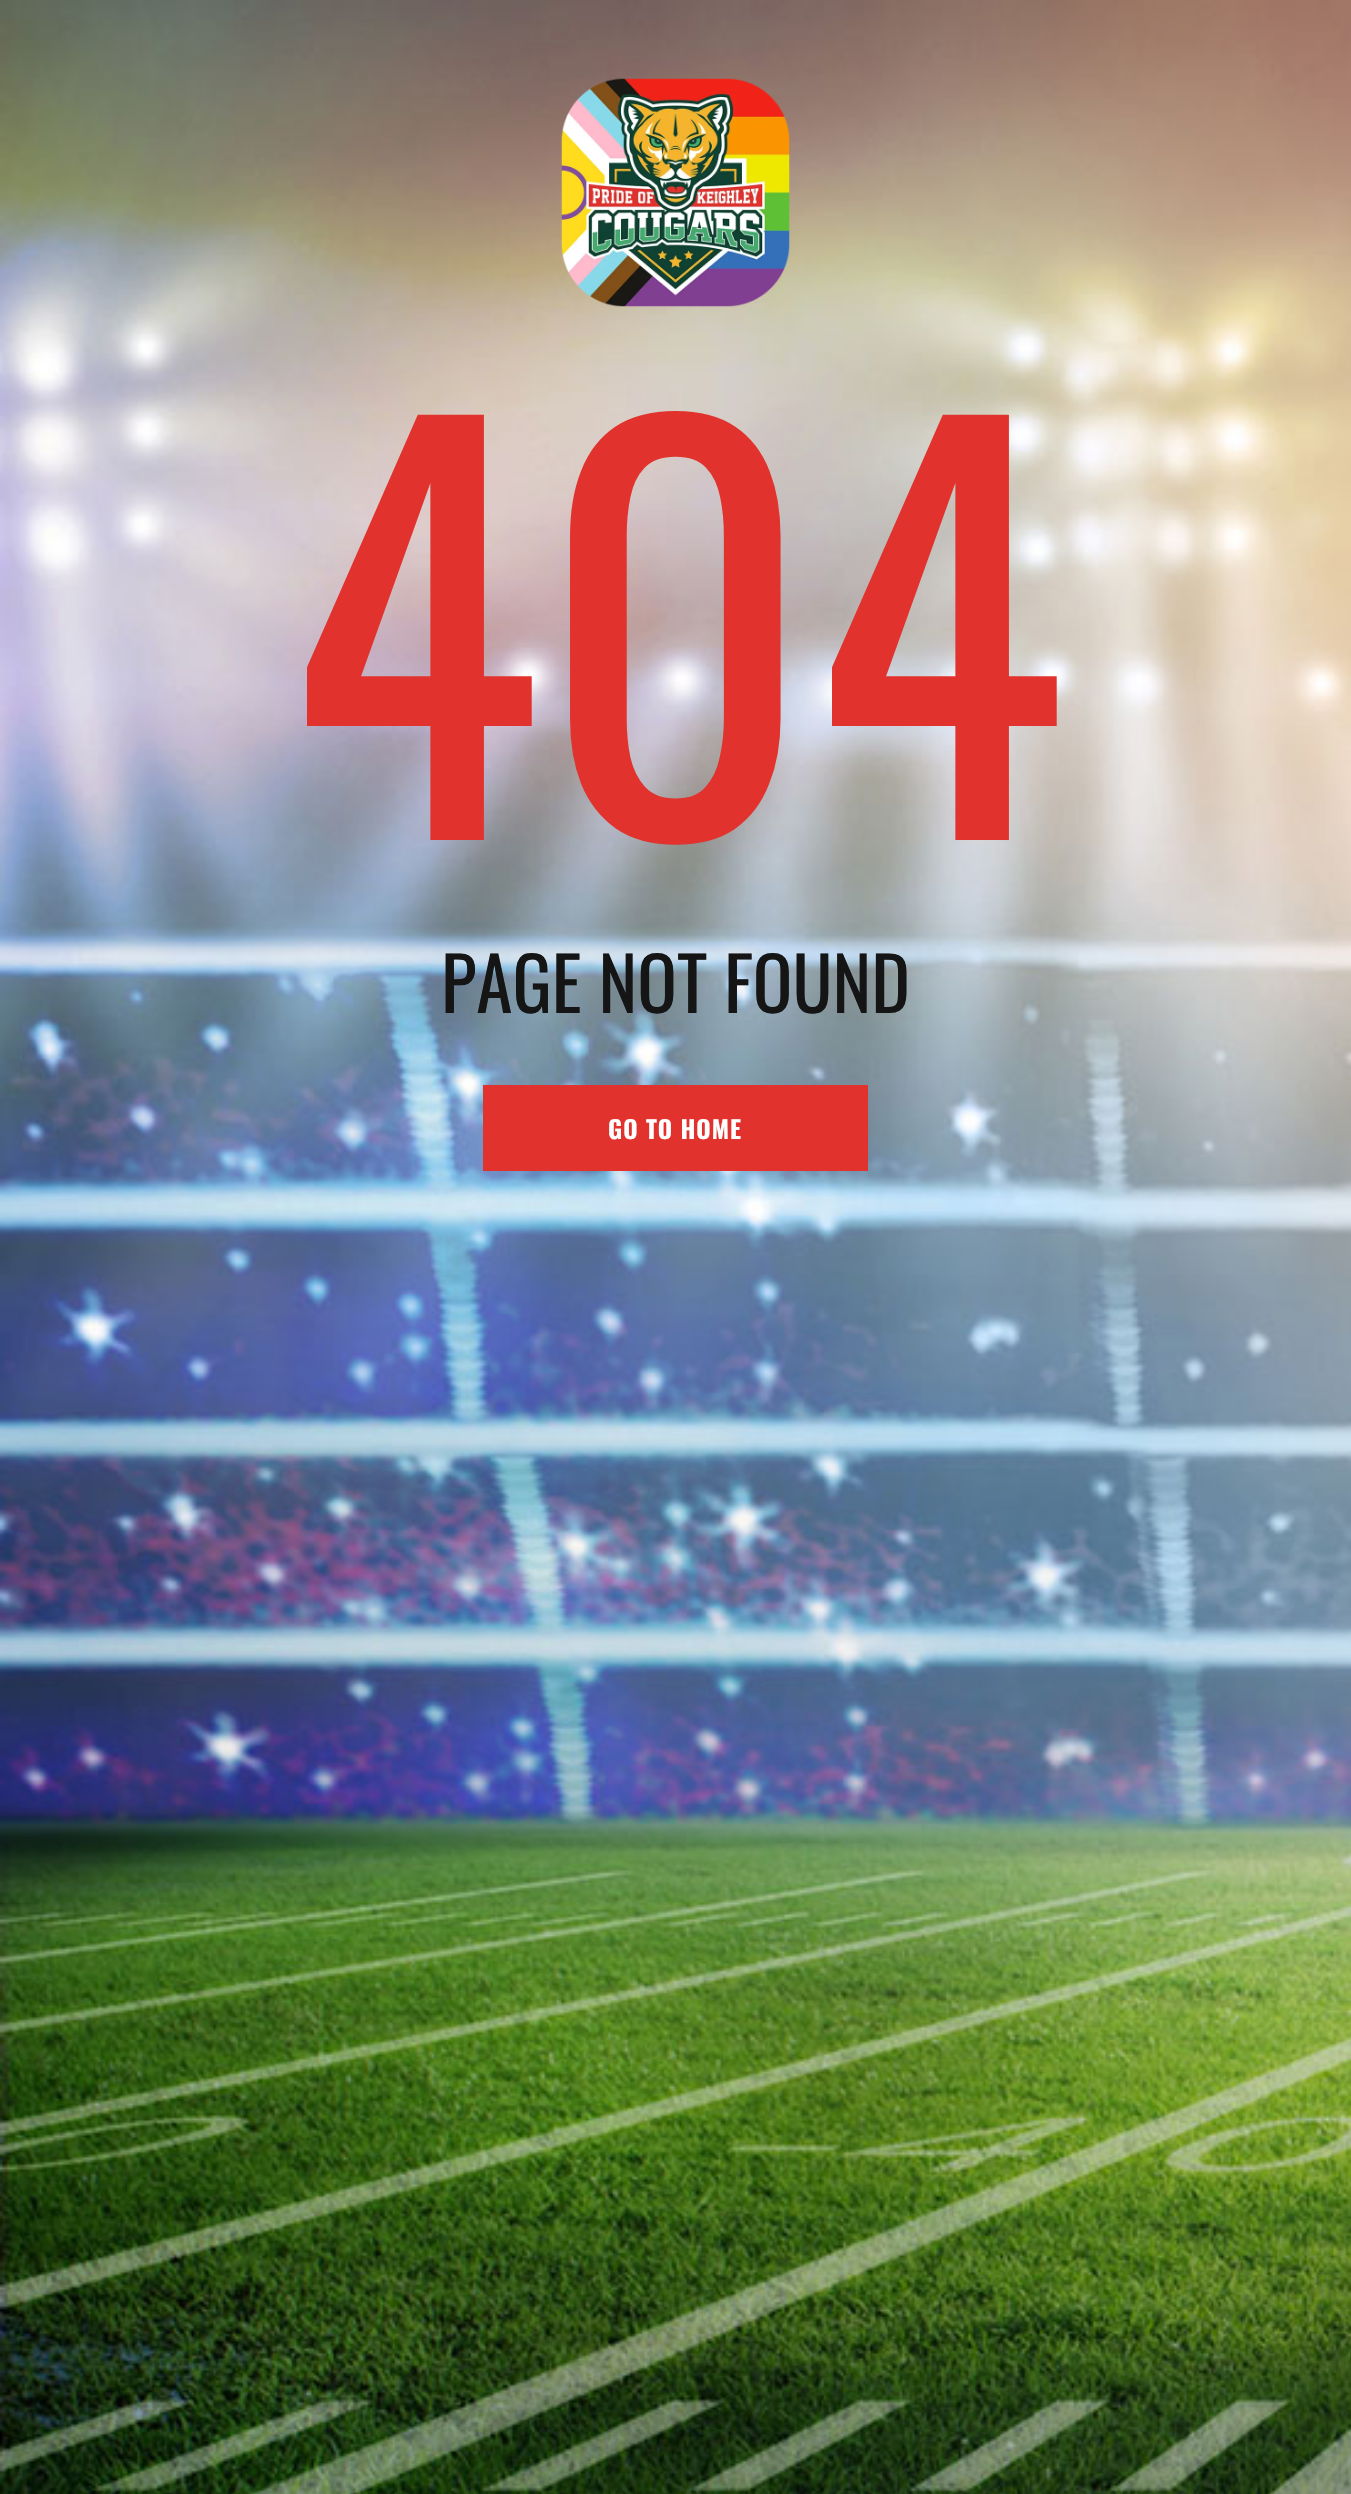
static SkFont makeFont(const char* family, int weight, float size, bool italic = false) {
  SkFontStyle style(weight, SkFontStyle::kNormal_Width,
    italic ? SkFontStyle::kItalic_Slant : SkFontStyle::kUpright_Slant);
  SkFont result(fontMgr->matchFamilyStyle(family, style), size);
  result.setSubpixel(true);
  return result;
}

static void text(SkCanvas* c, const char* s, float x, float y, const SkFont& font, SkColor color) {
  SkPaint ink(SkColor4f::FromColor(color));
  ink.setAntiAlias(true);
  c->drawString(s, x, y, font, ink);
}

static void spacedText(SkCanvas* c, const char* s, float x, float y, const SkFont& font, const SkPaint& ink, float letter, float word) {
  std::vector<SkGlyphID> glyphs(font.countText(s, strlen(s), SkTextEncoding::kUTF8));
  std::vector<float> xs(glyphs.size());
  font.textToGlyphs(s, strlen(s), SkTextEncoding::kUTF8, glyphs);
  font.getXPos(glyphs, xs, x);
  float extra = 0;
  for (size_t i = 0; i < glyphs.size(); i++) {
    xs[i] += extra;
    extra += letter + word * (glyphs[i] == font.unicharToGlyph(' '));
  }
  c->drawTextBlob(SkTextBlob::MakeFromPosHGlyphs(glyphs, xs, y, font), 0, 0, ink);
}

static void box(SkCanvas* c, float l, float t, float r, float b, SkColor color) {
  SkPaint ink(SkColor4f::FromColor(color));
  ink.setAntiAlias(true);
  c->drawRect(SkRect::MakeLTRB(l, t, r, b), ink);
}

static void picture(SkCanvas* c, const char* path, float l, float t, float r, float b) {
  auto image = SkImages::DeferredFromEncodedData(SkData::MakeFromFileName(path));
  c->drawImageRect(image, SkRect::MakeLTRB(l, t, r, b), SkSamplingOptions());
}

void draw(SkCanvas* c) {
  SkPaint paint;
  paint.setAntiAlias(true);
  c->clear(0xffffffff);
  picture(c, "img_01.png", 0, 0, 1351, 2494);
  picture(c, "img_02.png", 561, 78, 790, 307);
  SkFont face1 = makeFont("Oswald", 400, 525);
  text(c, "404", 286, 840, face1, 0xffe1322d);
  SkFont face2 = makeFont("Oswald", 400, 73.5f);
  text(c, "PAGE NOT FOUND", 441, 1013, face2, 0xff151515);
  box(c, 483, 1085, 868, 1171, 0xffe1322d);
  SkFont face3 = makeFont("Oswald", 700, 24.5f);
  paint.setColor(0xffffffff);
  spacedText(c, "GO TO HOME", 608, 1139, face3, paint, 1, 0);
}
